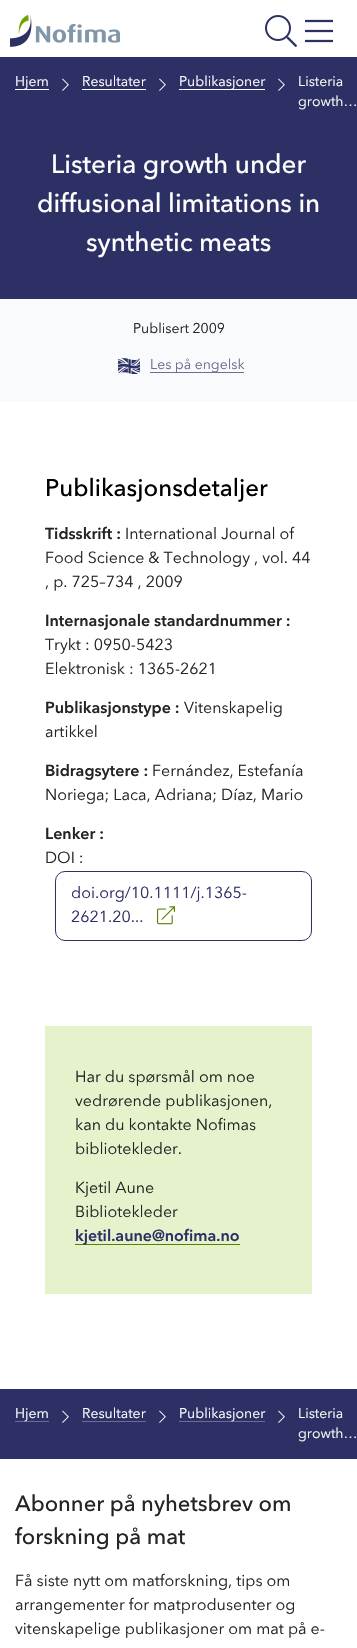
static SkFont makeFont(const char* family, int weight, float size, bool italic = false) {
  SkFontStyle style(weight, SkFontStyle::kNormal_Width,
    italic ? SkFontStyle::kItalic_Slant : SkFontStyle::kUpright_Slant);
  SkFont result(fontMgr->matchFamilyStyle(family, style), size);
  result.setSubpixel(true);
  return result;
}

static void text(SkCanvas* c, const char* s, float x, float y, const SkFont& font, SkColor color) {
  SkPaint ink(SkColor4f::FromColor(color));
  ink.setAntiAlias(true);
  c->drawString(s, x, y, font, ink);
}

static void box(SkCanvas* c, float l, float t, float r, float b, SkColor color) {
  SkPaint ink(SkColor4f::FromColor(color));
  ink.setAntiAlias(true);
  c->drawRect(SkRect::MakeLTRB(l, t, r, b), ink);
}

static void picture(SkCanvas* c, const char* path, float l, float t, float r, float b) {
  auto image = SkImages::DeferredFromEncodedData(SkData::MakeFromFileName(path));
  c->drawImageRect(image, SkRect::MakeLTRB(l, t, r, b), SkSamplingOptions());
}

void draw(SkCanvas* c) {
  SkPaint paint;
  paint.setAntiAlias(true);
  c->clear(0xffffffff);
  picture(c, "img_01.png", 10, 15, 120, 47);
  picture(c, "img_02.png", 265, 15, 297, 47);
  picture(c, "img_03.png", 305, 19, 333, 43);
  box(c, 0, 57, 357, 299, 0xff2d3065);
  box(c, 15, 89, 49, 90, 0xffffffff);
  SkFont face1 = makeFont("Avenir Next", 400, 14);
  text(c, "Hjem", 15, 86, face1, 0xffffffff);
  picture(c, "img_04.png", 62, 78, 69, 91);
  text(c, "Resultater", 82, 86, face1, 0xffffffff);
  box(c, 82, 89, 146, 90, 0xffffffff);
  picture(c, "img_04.png", 159, 78, 166, 91);
  box(c, 179, 89, 265, 90, 0xffffffff);
  text(c, "Publikasjoner", 179, 86, face1, 0xffffffff);
  picture(c, "img_04.png", 278, 78, 285, 91);
  text(c, "Listeria", 298, 86, face1, 0xfff9fcf2);
  text(c, "growth…", 298, 106, face1, 0xfff9fcf2);
  SkFont face2 = makeFont("Avenir Next", 500, 26);
  text(c, "Listeria growth under", 51, 173, face2, 0xffffffff);
  text(c, "diffusional limitations in", 37, 212, face2, 0xffffffff);
  text(c, "synthetic meats", 86, 251, face2, 0xffffffff);
  box(c, 0, 299, 357, 402, 0xfff9fafb);
  text(c, "Publisert 2009", 133, 333, face1, 0xff242424);
  picture(c, "img_05.png", 118, 358, 140, 374);
  box(c, 150, 372, 244, 373, 0xff6b6d93);
  text(c, "Les på engelsk", 150, 369, face1, 0xff6b6d93);
  SkFont face3 = makeFont("Avenir Next", 500, 24);
  text(c, "Publikasjonsdetaljer", 45, 496, face3, 0xff000000);
  SkFont face4 = makeFont("Avenir Next", 700, 16);
  text(c, "Tidsskrift :", 45, 539, face4, 0xff242424);
  SkFont face5 = makeFont("Avenir Next", 400, 16);
  text(c, "International Journal of", 125, 539, face5, 0xff242424);
  text(c, "Food Science & Technology , vol. 44", 45, 563, face5, 0xff242424);
  text(c, ", p. 725–734 , 2009", 45, 587, face5, 0xff242424);
  text(c, "Internasjonale standardnummer :", 45, 626, face4, 0xff242424);
  text(c, "Trykt : 0950-5423", 45, 650, face5, 0xff242424);
  text(c, "Elektronisk : 1365-2621", 45, 674, face5, 0xff242424);
  text(c, "Publikasjonstype :", 45, 713, face4, 0xff242424);
  text(c, "Vitenskapelig", 184, 713, face5, 0xff242424);
  text(c, "artikkel", 45, 737, face5, 0xff242424);
  text(c, "Bidragsytere :", 45, 776, face4, 0xff242424);
  text(c, "Fernández, Estefanía", 152, 776, face5, 0xff242424);
  text(c, "Noriega; Laca, Adriana; Díaz, Mario", 45, 800, face5, 0xff242424);
  text(c, "Lenker :", 45, 839, face4, 0xff242424);
  text(c, "DOI :", 45, 863, face5, 0xff242424);
  paint.setStyle(SkPaint::kStroke_Style);
  paint.setStrokeWidth(1);
  paint.setColor(0xff2d3065);
  c->drawRoundRect(SkRect::MakeLTRB(55.5f, 871.5f, 311.5f, 940.5f), 9.5f, 9.5f, paint);
  text(c, "doi.org/10.1111/j.1365-", 71, 898, face5, 0xff2d3065);
  text(c, "2621.20...", 71, 922, face5, 0xff2d3065);
  picture(c, "img_06.png", 157, 906, 175, 925);
  box(c, 45, 1026, 312, 1294, 0xffe6f2cc);
  text(c, "Har du spørsmål om noe", 75, 1082, face5, 0xff242424);
  text(c, "vedrørende publikasjonen,", 75, 1106, face5, 0xff242424);
  text(c, "kan du kontakte Nofimas", 75, 1130, face5, 0xff242424);
  text(c, "bibliotekleder.", 75, 1154, face5, 0xff242424);
  text(c, "Kjetil Aune", 75, 1193, face5, 0xff242424);
  text(c, "Bibliotekleder", 75, 1217, face5, 0xff242424);
  box(c, 75, 1244, 240, 1245, 0xff588100);
  text(c, "kjetil.aune@nofima.no", 75, 1241, face4, 0xff2d3065);
  box(c, 0, 1389, 357, 1459, 0xff2d3065);
  box(c, 15, 1421, 49, 1422, 0xff6b6d93);
  text(c, "Hjem", 15, 1418, face1, 0xffffffff);
  picture(c, "img_04.png", 62, 1410, 69, 1423);
  text(c, "Resultater", 82, 1418, face1, 0xffffffff);
  box(c, 82, 1421, 146, 1422, 0xff6b6d93);
  picture(c, "img_04.png", 159, 1410, 166, 1423);
  box(c, 179, 1421, 265, 1422, 0xff6b6d93);
  text(c, "Publikasjoner", 179, 1418, face1, 0xffffffff);
  picture(c, "img_04.png", 278, 1410, 285, 1423);
  text(c, "Listeria", 298, 1418, face1, 0xfff9fcf2);
  text(c, "growth…", 298, 1438, face1, 0xfff9fcf2);
  SkFont face6 = makeFont("Avenir Next", 500, 22);
  text(c, "Abonner på nyhetsbrev om", 15, 1511, face6, 0xff242424);
  text(c, "forskning på mat", 15, 1544, face6, 0xff242424);
  text(c, "Få siste nytt om matforskning, tips om", 15, 1586, face5, 0xff242424);
  text(c, "arrangementer for matprodusenter og", 15, 1610, face5, 0xff242424);
  text(c, "vitenskapelige publikasjoner om mat på e-", 15, 1634, face5, 0xff242424);
}
